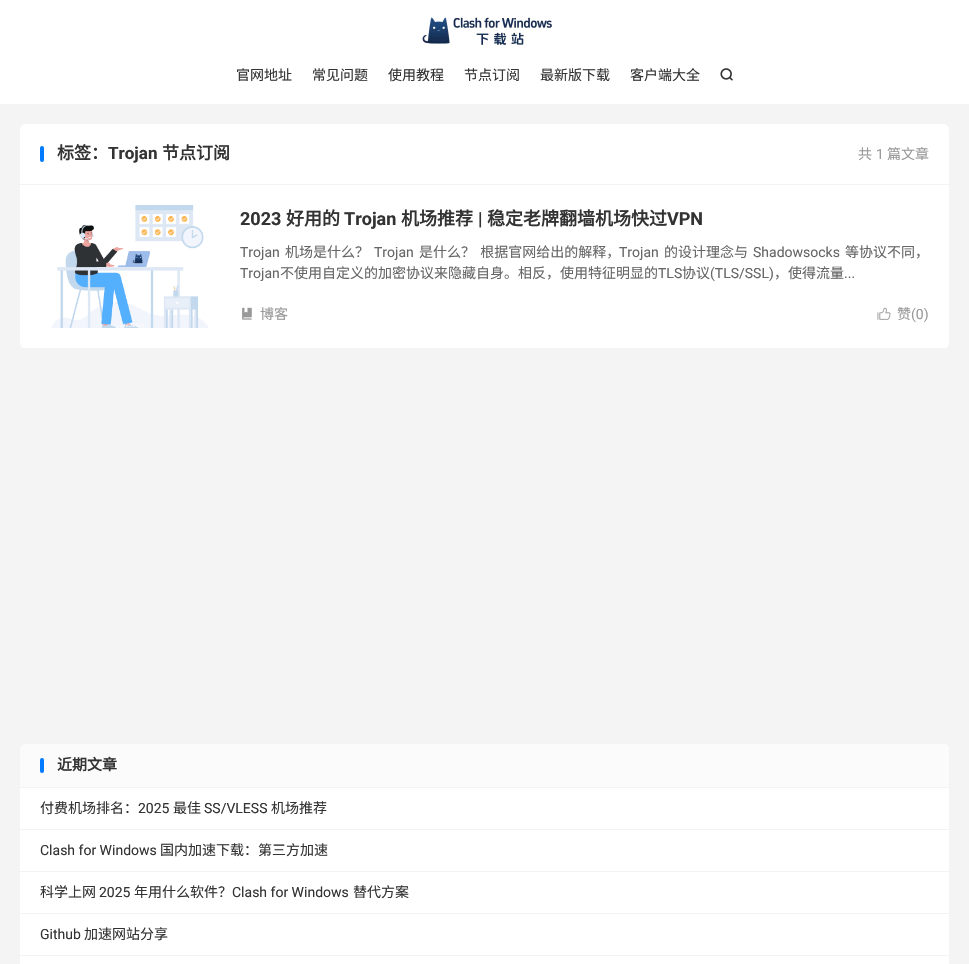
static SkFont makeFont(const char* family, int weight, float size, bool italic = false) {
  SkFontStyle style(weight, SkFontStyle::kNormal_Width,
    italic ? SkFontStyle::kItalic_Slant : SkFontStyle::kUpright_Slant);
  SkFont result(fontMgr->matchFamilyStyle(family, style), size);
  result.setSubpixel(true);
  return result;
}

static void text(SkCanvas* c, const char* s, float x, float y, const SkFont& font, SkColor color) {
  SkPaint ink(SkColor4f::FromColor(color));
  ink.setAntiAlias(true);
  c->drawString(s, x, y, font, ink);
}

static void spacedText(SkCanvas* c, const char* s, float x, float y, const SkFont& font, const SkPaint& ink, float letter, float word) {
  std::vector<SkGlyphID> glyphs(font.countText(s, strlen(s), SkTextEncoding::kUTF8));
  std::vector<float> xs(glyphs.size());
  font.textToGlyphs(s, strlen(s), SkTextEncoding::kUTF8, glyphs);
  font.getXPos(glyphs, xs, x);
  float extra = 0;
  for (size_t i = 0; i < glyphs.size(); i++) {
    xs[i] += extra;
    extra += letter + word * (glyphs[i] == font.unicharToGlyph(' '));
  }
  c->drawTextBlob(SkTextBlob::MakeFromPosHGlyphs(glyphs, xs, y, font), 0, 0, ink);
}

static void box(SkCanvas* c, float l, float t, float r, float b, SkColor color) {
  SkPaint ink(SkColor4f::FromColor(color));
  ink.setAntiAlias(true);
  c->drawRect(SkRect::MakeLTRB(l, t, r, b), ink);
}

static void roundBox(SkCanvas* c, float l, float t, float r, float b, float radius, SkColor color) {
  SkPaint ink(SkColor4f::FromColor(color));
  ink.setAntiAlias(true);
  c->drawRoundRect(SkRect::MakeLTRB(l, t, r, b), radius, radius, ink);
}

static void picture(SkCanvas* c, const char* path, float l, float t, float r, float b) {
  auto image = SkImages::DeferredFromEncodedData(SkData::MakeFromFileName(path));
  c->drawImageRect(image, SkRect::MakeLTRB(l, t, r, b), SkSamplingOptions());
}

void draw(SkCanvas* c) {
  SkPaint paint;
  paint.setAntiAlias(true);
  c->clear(0xfff4f4f4);
  box(c, 0, 0, 969, 104, 0xffffffff);
  picture(c, "img_01.png", 422, 17, 552, 45);
  SkFont face1 = makeFont("Noto Sans CJK SC", 400, 14);
  text(c, "官网地址", 236, 80, face1, 0xff333333);
  text(c, "常见问题", 312, 80, face1, 0xff333333);
  text(c, "使用教程", 388, 80, face1, 0xff333333);
  text(c, "节点订阅", 464, 80, face1, 0xff333333);
  text(c, "最新版下载", 540, 80, face1, 0xff333333);
  text(c, "客户端大全", 630, 80, face1, 0xff333333);
  picture(c, "img_02.png", 720, 68, 733, 81);
  paint.setColor(0xffffffff);
  c->drawPath(SkPathBuilder().moveTo(26, 124).lineTo(943, 124).cubicTo(946.5f, 124, 949, 126.5f, 949, 130).lineTo(949, 185).lineTo(20, 185).lineTo(20, 130).cubicTo(20, 126.5f, 22.5f, 124, 26, 124).close().detach(), paint);
  box(c, 20, 184, 949, 185, 0xfff3f3f3);
  roundBox(c, 40, 146, 44, 162, 2, 0xff007bff);
  SkFont face2 = makeFont("Noto Sans CJK SC", 700, 17);
  text(c, "标签：", 57, 159, face2, 0xff333333);
  SkFont face3 = makeFont("Roboto", 700, 17);
  text(c, "Trojan", 108, 159, face3, 0xff333333);
  text(c, "节点订阅", 162, 159, face2, 0xff333333);
  text(c, "共", 858, 159, face1, 0xff999999);
  SkFont face4 = makeFont("Roboto", 400, 14);
  text(c, "1", 876, 159, face4, 0xff999999);
  text(c, "篇文章", 887, 159, face1, 0xff999999);
  c->drawPath(SkPathBuilder().moveTo(20, 185).lineTo(949, 185).lineTo(949, 343).cubicTo(949, 346.5f, 946.5f, 349, 943, 349).lineTo(26, 349).cubicTo(22.5f, 349, 20, 346.5f, 20, 343).close().detach(), paint);
  box(c, 23, 348, 946, 349, 0xfff3f3f3);
  picture(c, "img_03.png", 51, 205, 209, 328);
  SkFont face5 = makeFont("Roboto", 700, 18);
  text(c, "2023", 240, 225, face5, 0xff333333);
  SkFont face6 = makeFont("Noto Sans CJK SC", 700, 18);
  text(c, "好用的", 286, 225, face6, 0xff333333);
  text(c, "Trojan", 344, 225, face5, 0xff333333);
  text(c, "机场推荐", 401, 225, face6, 0xff333333);
  text(c, "|", 478, 225, face5, 0xff333333);
  text(c, "稳定老牌翻墙机场快过", 487, 225, face6, 0xff333333);
  text(c, "VPN", 667, 225, face5, 0xff333333);
  text(c, "Trojan", 240, 257, face4, 0xff666666);
  text(c, "机场是什么？", 285, 257, face1, 0xff666666);
  text(c, "Trojan", 374, 257, face4, 0xff666666);
  paint.setColor(0xff666666);
  spacedText(c, "是什么？ 根据官网给出的解释，", 419, 257, face1, paint, 0, 2);
  text(c, "Trojan", 619, 257, face4, 0xff666666);
  text(c, "的设计理念与", 664, 257, face1, 0xff666666);
  text(c, "Shadowsocks", 753, 257, face4, 0xff666666);
  text(c, "等协议不同，", 845, 257, face1, 0xff666666);
  text(c, "Trojan", 240, 278, face4, 0xff666666);
  text(c, "不使用自定义的加密协议来隐藏自身。相反，使用特征明显的", 280, 278, face1, 0xff666666);
  text(c, "TLS", 658, 278, face4, 0xff666666);
  text(c, "协议", 682, 278, face1, 0xff666666);
  text(c, "(TLS/SSL)", 710, 278, face4, 0xff666666);
  text(c, "，使得流量", 774, 278, face1, 0xff666666);
  text(c, "...", 844, 278, face4, 0xff666666);
  picture(c, "img_04.png", 242, 307, 252, 320);
  text(c, "博客", 260, 319, face1, 0xff999999);
  picture(c, "img_05.png", 877, 307, 891, 320);
  text(c, "赞", 897, 319, face1, 0xff999999);
  text(c, "(0)", 911, 319, face4, 0xff999999);
  roundBox(c, 20, 744, 949, 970, 6, 0xffffffff);
  paint.setColor(0xfffbfbfb);
  c->drawPath(SkPathBuilder().moveTo(26, 744).lineTo(943, 744).cubicTo(946.5f, 744, 949, 746.5f, 949, 750).lineTo(949, 788).lineTo(20, 788).lineTo(20, 750).cubicTo(20, 746.5f, 22.5f, 744, 26, 744).close().detach(), paint);
  box(c, 20, 787, 949, 788, 0xfff3f3f3);
  roundBox(c, 40, 758, 44, 773, 2, 0xff007bff);
  SkFont face7 = makeFont("Noto Sans CJK SC", 700, 15);
  text(c, "近期文章", 57, 770, face7, 0xff333333);
  box(c, 20, 829, 949, 830, 0xfff3f3f3);
  text(c, "付费机场排名：", 40, 813, face1, 0xff333333);
  text(c, "2025", 138, 813, face4, 0xff333333);
  text(c, "最佳", 173, 813, face1, 0xff333333);
  text(c, "SS/VLESS", 204, 813, face4, 0xff333333);
  text(c, "机场推荐", 271, 813, face1, 0xff333333);
  box(c, 20, 871, 949, 872, 0xfff3f3f3);
  text(c, "Clash for Windows", 40, 855, face4, 0xff333333);
  text(c, "国内加速下载：第三方加速", 160, 855, face1, 0xff333333);
  box(c, 20, 913, 949, 914, 0xfff3f3f3);
  text(c, "科学上网", 40, 897, face1, 0xff333333);
  text(c, "2025", 99, 897, face4, 0xff333333);
  text(c, "年用什么软件？", 134, 897, face1, 0xff333333);
  text(c, "Clash for Windows", 232, 897, face4, 0xff333333);
  text(c, "替代方案", 353, 897, face1, 0xff333333);
  box(c, 20, 955, 949, 956, 0xfff3f3f3);
  text(c, "Github", 40, 939, face4, 0xff333333);
  text(c, "加速网站分享", 84, 939, face1, 0xff333333);
}
